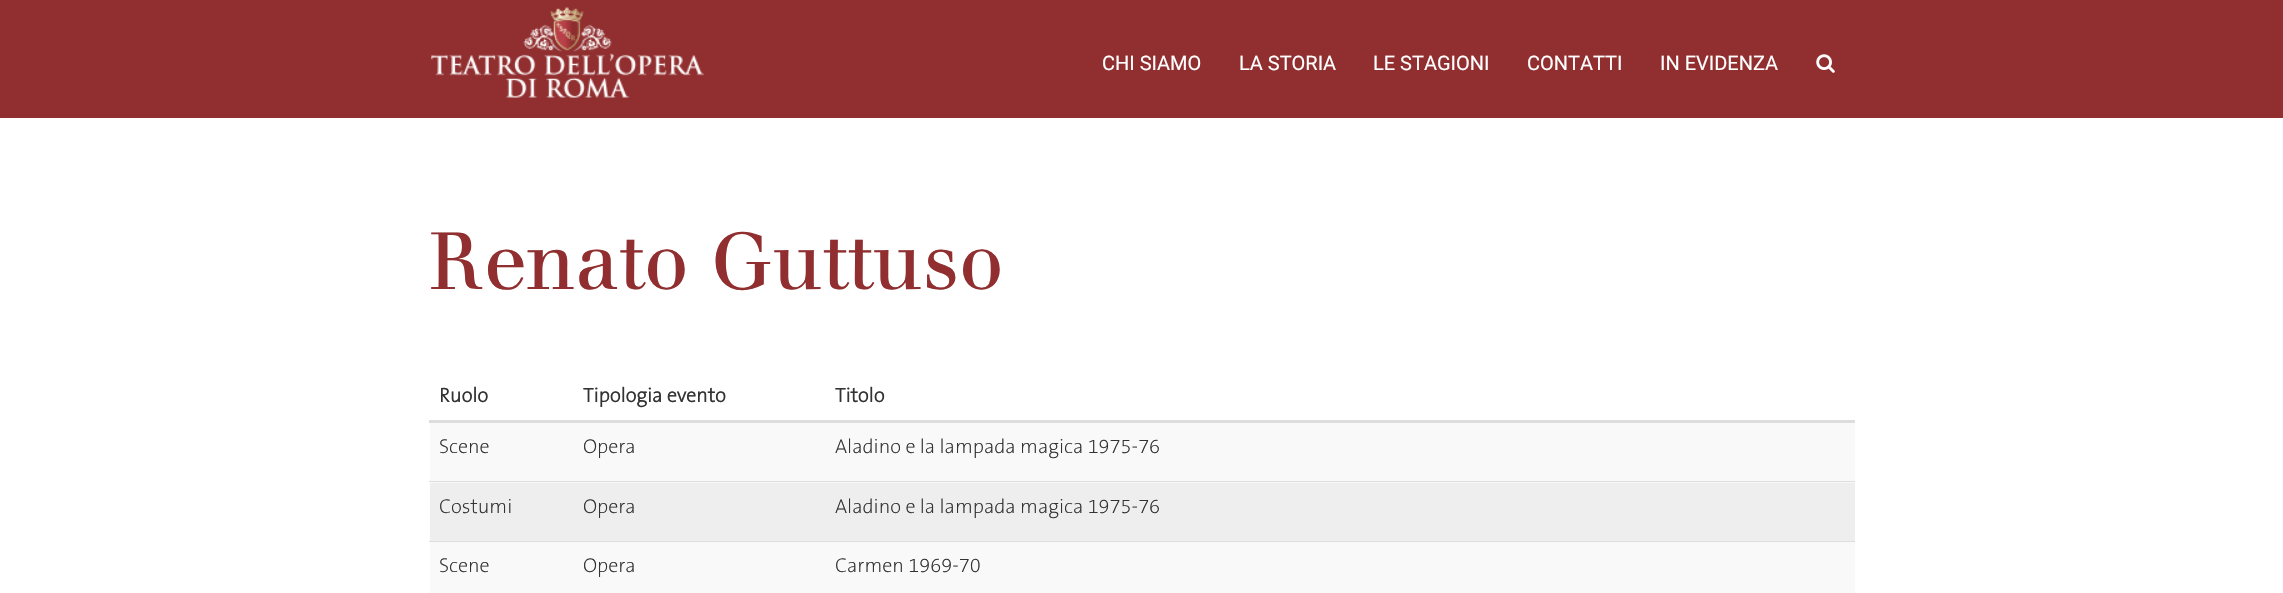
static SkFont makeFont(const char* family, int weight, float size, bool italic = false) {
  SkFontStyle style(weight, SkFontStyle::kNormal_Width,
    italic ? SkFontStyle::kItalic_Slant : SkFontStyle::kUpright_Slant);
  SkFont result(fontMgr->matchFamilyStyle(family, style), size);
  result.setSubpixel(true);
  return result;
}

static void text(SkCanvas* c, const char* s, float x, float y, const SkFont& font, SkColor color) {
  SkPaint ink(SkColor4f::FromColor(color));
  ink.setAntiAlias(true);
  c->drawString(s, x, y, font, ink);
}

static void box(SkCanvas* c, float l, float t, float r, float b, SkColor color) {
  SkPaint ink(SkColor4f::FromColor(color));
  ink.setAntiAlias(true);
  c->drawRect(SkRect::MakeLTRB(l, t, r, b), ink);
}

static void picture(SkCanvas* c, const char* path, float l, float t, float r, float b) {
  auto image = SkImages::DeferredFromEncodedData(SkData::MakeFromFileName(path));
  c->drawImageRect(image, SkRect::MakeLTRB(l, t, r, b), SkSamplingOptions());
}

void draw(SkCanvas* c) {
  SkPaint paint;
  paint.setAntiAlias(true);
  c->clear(0xffffffff);
  box(c, 0, 0, 2283, 118, 0xff912f30);
  picture(c, "img_01.png", 431, 7, 704, 98);
  SkFont face1 = makeFont("Roboto", 400, 20);
  text(c, "CHI SIAMO", 1102, 70, face1, 0xffffffff);
  text(c, "LA STORIA", 1239, 70, face1, 0xffffffff);
  text(c, "LE STAGIONI", 1373, 70, face1, 0xffffffff);
  text(c, "CONTATTI", 1527, 70, face1, 0xffffffff);
  text(c, "IN EVIDENZA", 1660, 70, face1, 0xffffffff);
  picture(c, "img_02.png", 1816, 54, 1835, 73);
  SkFont face2 = makeFont("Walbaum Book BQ", 400, 80);
  text(c, "Renato Guttuso", 429, 289, face2, 0xff912f30);
  SkFont face3 = makeFont("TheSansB", 700, 20);
  text(c, "Ruolo", 439, 402, face3, 0xff333333);
  text(c, "Tipologia evento", 583, 402, face3, 0xff333333);
  text(c, "Titolo", 835, 402, face3, 0xff333333);
  box(c, 429, 420, 1855, 423, 0xffdddddd);
  box(c, 430, 423, 1855, 483, 0xfff9f9f9);
  SkFont face4 = makeFont("TheSansB", 200, 20);
  text(c, "Scene", 439, 453, face4, 0xff333333);
  text(c, "Opera", 583, 453, face4, 0xff333333);
  text(c, "Aladino e la lampada magica 1975-76", 835, 453, face4, 0xff333333);
  box(c, 430, 483, 1855, 541, 0xffeeeeee);
  box(c, 429, 481, 1855, 482, 0xffdddddd);
  text(c, "Costumi", 439, 513, face4, 0xff333333);
  text(c, "Opera", 583, 513, face4, 0xff333333);
  text(c, "Aladino e la lampada magica 1975-76", 835, 513, face4, 0xff333333);
  box(c, 430, 542, 1855, 593, 0xfff9f9f9);
  box(c, 429, 541, 1855, 542, 0xffdddddd);
  text(c, "Scene", 439, 572, face4, 0xff333333);
  text(c, "Opera", 583, 572, face4, 0xff333333);
  text(c, "Carmen 1969-70", 835, 572, face4, 0xff333333);
}
